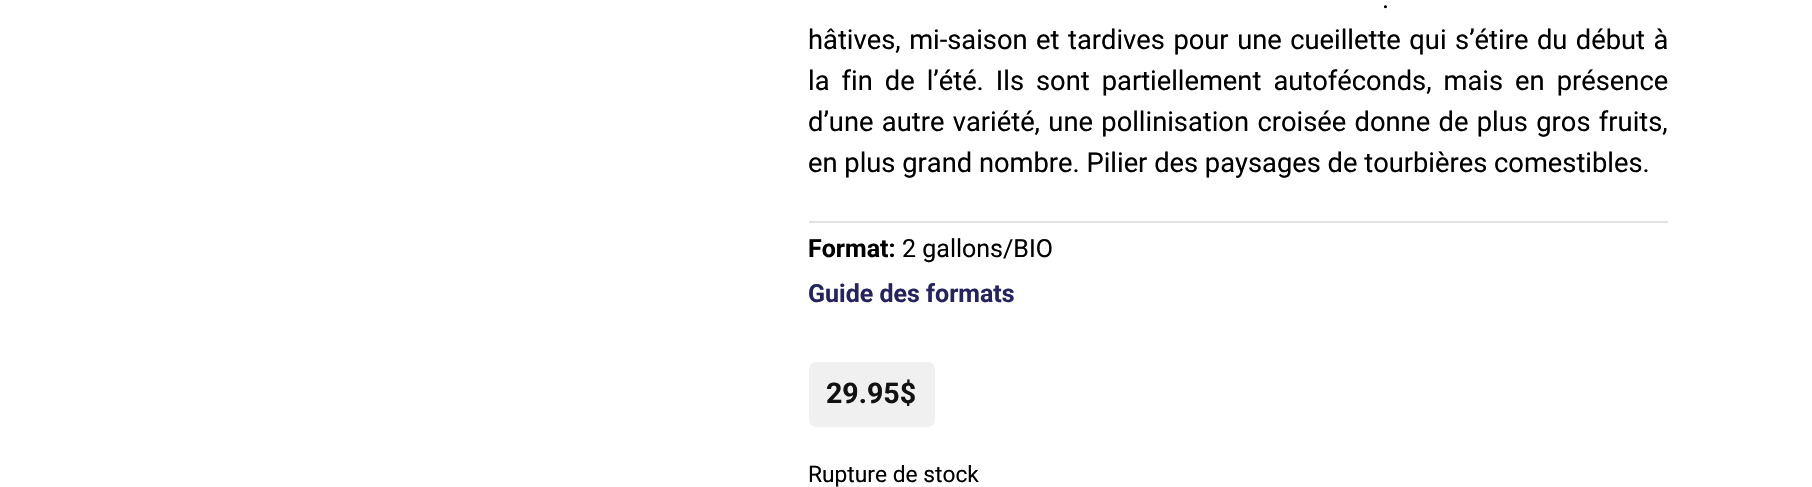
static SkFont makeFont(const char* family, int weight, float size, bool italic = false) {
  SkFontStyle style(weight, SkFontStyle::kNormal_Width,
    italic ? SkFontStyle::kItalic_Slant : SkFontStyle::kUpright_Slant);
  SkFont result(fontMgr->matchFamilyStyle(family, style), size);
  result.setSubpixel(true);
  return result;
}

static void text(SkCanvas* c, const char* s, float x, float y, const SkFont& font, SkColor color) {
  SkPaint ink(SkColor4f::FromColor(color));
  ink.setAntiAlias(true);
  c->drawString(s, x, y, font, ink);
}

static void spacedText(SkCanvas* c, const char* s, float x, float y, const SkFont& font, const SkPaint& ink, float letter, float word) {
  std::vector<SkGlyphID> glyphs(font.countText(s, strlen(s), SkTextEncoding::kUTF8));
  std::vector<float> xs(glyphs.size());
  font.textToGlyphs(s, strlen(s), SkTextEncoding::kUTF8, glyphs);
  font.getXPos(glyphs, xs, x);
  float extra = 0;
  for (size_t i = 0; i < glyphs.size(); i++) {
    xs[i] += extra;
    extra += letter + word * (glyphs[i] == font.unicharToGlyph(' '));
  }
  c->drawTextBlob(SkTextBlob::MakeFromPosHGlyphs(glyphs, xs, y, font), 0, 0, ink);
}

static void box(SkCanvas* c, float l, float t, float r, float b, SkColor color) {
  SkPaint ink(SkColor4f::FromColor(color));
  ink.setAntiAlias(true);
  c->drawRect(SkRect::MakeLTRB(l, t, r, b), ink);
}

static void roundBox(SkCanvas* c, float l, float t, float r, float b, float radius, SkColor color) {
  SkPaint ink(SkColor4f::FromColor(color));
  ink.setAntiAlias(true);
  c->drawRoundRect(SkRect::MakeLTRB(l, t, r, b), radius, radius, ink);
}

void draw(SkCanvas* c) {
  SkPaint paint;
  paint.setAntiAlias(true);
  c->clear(0xffffffff);
  SkFont face1 = makeFont("Roboto", 400, 27.3f);
  paint.setColor(0xff000000);
  spacedText(c, ".", 1382, 8, face1, paint, 0, 3);
  spacedText(c, "hâtives, mi-saison et tardives pour une cueillette qui s’étire du début à", 808, 49, face1, paint, 0, 1.75f);
  spacedText(c, "la fin de l’été. Ils sont partiellement autoféconds, mais en présence", 808, 90, face1, paint, 0, 5.25f);
  spacedText(c, "d’une autre variété, une pollinisation croisée donne de plus gros fruits,", 808, 131, face1, paint, 0, 1.6f);
  text(c, "en plus grand nombre. Pilier des paysages de tourbières comestibles.", 808, 172, face1, 0xff000000);
  box(c, 809, 221, 1668, 223, 0xffe1e1e1);
  SkFont face2 = makeFont("Roboto", 700, 25);
  text(c, "Format:", 808, 257, face2, 0xff000000);
  SkFont face3 = makeFont("Roboto", 400, 25);
  text(c, "2 gallons/BIO", 902, 257, face3, 0xff000000);
  text(c, "Guide des formats", 808, 302, face2, 0xff25245e);
  roundBox(c, 809, 362, 935, 427, 7, 0xfff0f0f0);
  SkFont face4 = makeFont("Roboto", 700, 28.5f);
  text(c, "29.95$", 826, 403, face4, 0xff121212);
  SkFont face5 = makeFont("Roboto", 400, 22.75f);
  text(c, "Rupture de stock", 808, 482, face5, 0xff000000);
}
